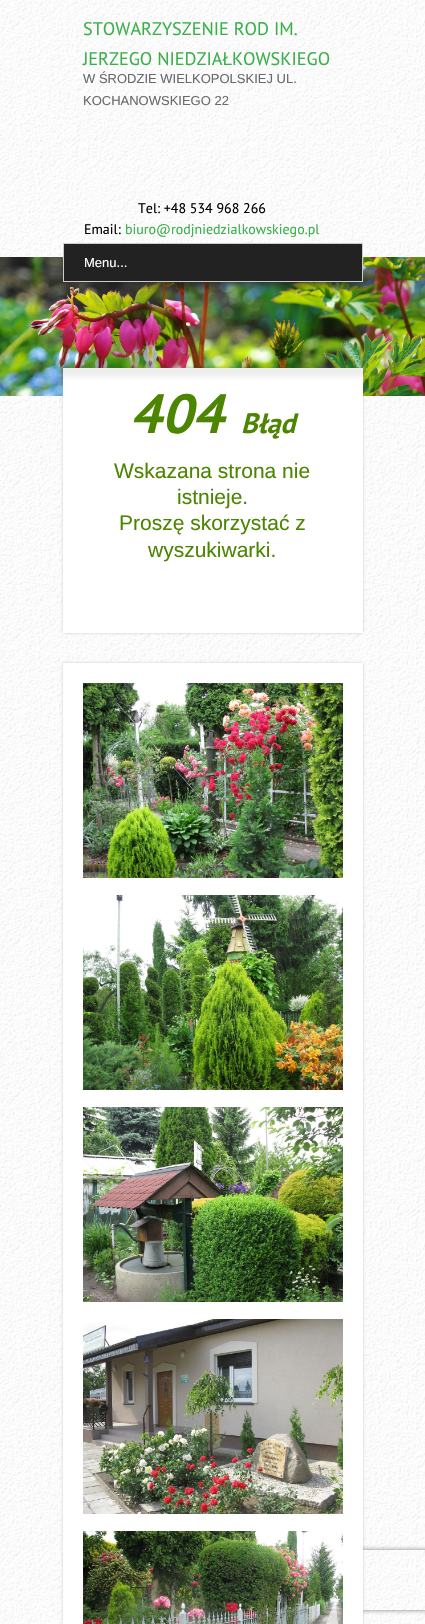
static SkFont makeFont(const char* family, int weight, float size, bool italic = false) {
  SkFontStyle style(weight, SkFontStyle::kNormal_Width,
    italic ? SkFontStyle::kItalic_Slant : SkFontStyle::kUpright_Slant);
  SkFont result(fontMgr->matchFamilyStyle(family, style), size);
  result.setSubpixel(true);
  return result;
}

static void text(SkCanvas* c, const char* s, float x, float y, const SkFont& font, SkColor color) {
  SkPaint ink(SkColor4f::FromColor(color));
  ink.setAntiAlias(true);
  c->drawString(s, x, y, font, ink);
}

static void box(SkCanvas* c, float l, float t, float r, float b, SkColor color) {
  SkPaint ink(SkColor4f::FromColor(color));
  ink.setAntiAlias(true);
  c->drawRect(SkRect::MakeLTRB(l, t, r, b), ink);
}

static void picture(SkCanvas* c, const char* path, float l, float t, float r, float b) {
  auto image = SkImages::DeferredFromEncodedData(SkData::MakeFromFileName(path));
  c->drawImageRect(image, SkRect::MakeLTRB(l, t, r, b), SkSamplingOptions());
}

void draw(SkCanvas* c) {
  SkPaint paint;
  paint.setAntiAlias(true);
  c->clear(0xffffffff);
  picture(c, "img_01.png", 0, 0, 425, 1624);
  SkFont face1 = makeFont("PT Sans", 400, 18.25f);
  text(c, "STOWARZYSZENIE ROD IM.", 83, 35, face1, 0xff3ab04a);
  text(c, "JERZEGO NIEDZIAŁKOWSKIEGO", 83, 65, face1, 0xff3ab04a);
  SkFont face2 = makeFont("Liberation Sans", 400, 13);
  text(c, "W ŚRODZIE WIELKOPOLSKIEJ UL.", 83, 83, face2, 0xff6a6a6a);
  text(c, "KOCHANOWSKIEGO 22", 83, 105, face2, 0xff6a6a6a);
  SkFont face3 = makeFont("PT Sans", 400, 14);
  text(c, "Tel: +48 534 968 266", 138, 213, face3, 0xff000000);
  text(c, "Email:", 84, 234, face3, 0xff000000);
  text(c, "biuro@rodjniedzialkowskiego.pl", 125, 234, face3, 0xff3ab04a);
  picture(c, "img_02.png", 0, 257, 425, 396);
  paint.setColor(0xff222222);
  paint.setMaskFilter(SkMaskFilter::MakeBlur(kNormal_SkBlurStyle, 5));
  c->drawRect(SkRect::MakeLTRB(71, 261, 355, 284), paint);
  paint.setMaskFilter(nullptr);
  c->drawRect(SkRect::MakeLTRB(63.5f, 243.5f, 362.5f, 281.5f), paint);
  paint.setStyle(SkPaint::kStroke_Style);
  paint.setStrokeWidth(1);
  paint.setColor(0xffcccccc);
  c->drawRect(SkRect::MakeLTRB(63.5f, 243.5f, 362.5f, 281.5f), paint);
  text(c, "Menu...", 84, 267, face2, 0xffffffff);
  paint.setStyle(SkPaint::kFill_Style);
  paint.setColor(0x4d646464);
  paint.setMaskFilter(SkMaskFilter::MakeBlur(kNormal_SkBlurStyle, 1.5f));
  c->drawRect(SkRect::MakeLTRB(63, 368, 363, 633), paint);
  paint.setMaskFilter(nullptr);
  box(c, 63, 368, 363, 633, 0xffffffff);
  picture(c, "img_03.png", 63, 368, 363, 380);
  SkFont face4 = makeFont("PT Sans", 700, 55, true);
  text(c, "404", 130, 433, face4, 0xff4c8500);
  SkFont face5 = makeFont("PT Sans", 700, 28, true);
  text(c, "Błąd", 241, 433, face5, 0xff4c8500);
  SkFont face6 = makeFont("Liberation Sans", 400, 21);
  text(c, "Wskazana strona nie", 114, 478, face6, 0xff4c8500);
  text(c, "istnieje.", 177, 504, face6, 0xff4c8500);
  text(c, "Proszę skorzystać z", 119, 530, face6, 0xff4c8500);
  text(c, "wyszukiwarki.", 148, 557, face6, 0xff4c8500);
  paint.setMaskFilter(SkMaskFilter::MakeBlur(kNormal_SkBlurStyle, 1.5f));
  c->drawRect(SkRect::MakeLTRB(63, 663, 363, 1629), paint);
  paint.setMaskFilter(nullptr);
  c->save();
  c->clipPath(SkPathBuilder(SkPathFillType::kEvenOdd).moveTo(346, 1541).lineTo(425, 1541).lineTo(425, 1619).lineTo(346, 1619).close().moveTo(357, 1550).lineTo(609, 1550).cubicTo(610, 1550, 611, 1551, 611, 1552).lineTo(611, 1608).cubicTo(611, 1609, 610, 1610, 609, 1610).lineTo(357, 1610).cubicTo(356, 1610, 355, 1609, 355, 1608).lineTo(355, 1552).cubicTo(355, 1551, 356, 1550, 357, 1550).close().detach(), true);
  paint.setColor(0xff808080);
  paint.setMaskFilter(SkMaskFilter::MakeBlur(kNormal_SkBlurStyle, 2.5f));
  c->drawRoundRect(SkRect::MakeLTRB(355, 1550, 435, 1610), 2, 2, paint);
  paint.setMaskFilter(nullptr);
  c->restore();
  box(c, 63, 663, 363, 1624, 0xffffffff);
  picture(c, "img_04.png", 83, 683, 343, 878);
  picture(c, "img_05.png", 83, 895, 343, 1090);
  picture(c, "img_06.png", 83, 1107, 343, 1302);
  picture(c, "img_07.png", 83, 1319, 343, 1514);
  picture(c, "img_08.png", 83, 1531, 343, 1624);
}
